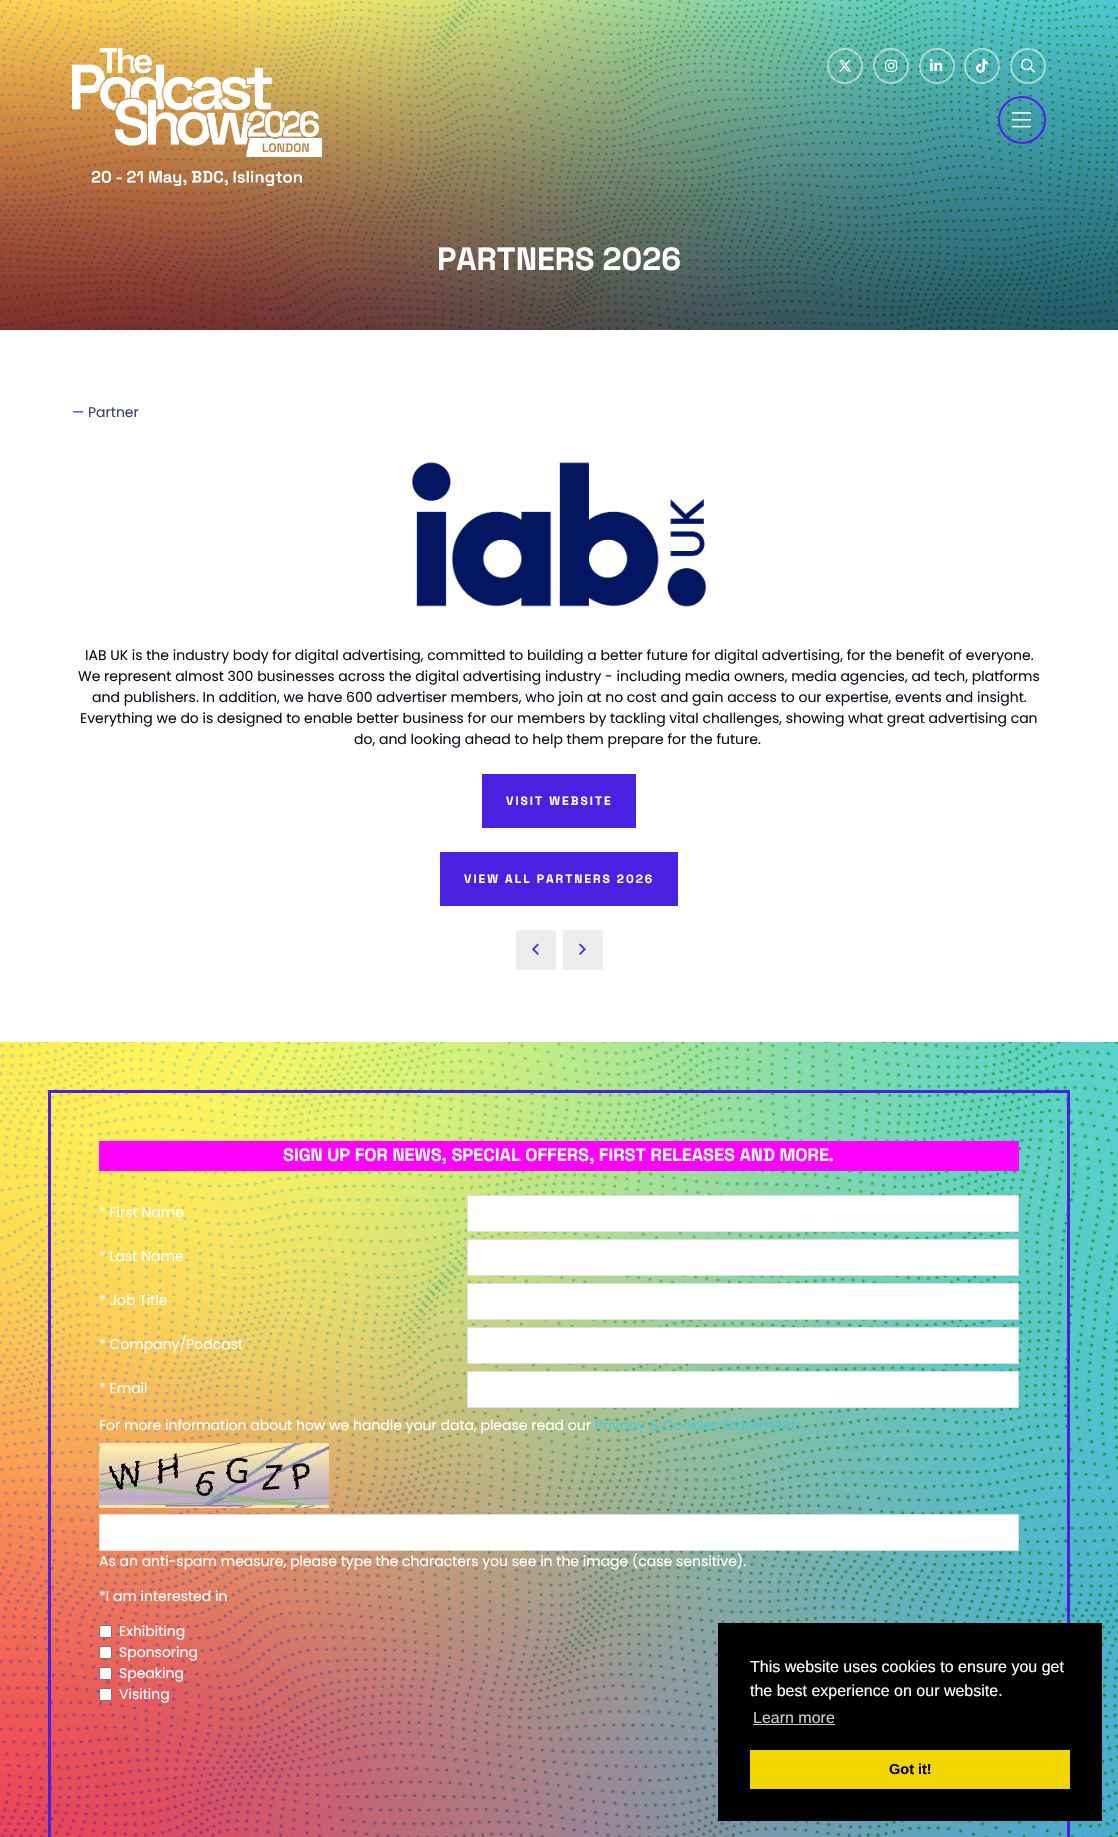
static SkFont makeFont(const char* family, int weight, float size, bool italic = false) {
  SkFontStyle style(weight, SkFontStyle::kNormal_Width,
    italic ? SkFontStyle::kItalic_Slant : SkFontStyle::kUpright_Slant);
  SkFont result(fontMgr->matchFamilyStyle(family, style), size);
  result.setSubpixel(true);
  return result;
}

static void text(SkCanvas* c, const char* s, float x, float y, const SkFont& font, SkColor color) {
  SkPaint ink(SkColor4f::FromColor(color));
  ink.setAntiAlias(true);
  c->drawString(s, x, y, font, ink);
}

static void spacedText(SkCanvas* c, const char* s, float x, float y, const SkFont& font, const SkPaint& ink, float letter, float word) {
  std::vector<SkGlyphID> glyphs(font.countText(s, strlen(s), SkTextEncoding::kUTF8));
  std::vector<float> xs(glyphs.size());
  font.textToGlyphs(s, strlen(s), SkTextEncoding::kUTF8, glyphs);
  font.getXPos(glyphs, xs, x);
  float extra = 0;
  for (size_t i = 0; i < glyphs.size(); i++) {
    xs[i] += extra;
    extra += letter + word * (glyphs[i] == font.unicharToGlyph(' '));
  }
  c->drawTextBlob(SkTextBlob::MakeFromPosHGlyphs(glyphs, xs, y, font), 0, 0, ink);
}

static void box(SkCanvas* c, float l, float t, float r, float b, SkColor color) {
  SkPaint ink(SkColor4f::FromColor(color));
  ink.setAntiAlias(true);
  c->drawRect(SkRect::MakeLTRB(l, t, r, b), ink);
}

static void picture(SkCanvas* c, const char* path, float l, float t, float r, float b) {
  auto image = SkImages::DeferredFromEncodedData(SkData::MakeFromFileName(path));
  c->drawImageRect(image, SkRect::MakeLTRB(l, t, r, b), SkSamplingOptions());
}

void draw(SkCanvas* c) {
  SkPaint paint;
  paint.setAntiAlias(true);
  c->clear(0xffffffff);
  picture(c, "img_08.png", 0, 0, 1118, 330);
  picture(c, "img_01.png", 72, 48, 322, 186);
  paint.setStyle(SkPaint::kStroke_Style);
  paint.setStrokeWidth(2);
  paint.setColor(0x80ffffff);
  c->drawCircle(845, 66, 17, paint);
  picture(c, "img_02.png", 838, 60, 852, 72);
  c->drawCircle(891, 66, 17, paint);
  picture(c, "img_03.png", 885, 59, 898, 72);
  c->drawCircle(937, 66, 17, paint);
  picture(c, "img_04.png", 930, 58, 943, 71);
  c->drawCircle(982, 66, 17, paint);
  picture(c, "img_05.png", 976, 58, 989, 73);
  c->drawCircle(1028, 66, 17, paint);
  picture(c, "img_06.png", 1021, 58, 1035, 73);
  paint.setColor(0xff551fef);
  c->drawCircle(1022, 120, 23, paint);
  picture(c, "img_07.png", 1012, 112, 1032, 128);
  SkFont face1 = makeFont("Space Grotesk", 700, 32);
  text(c, "PARTNERS 2026", 437, 270, face1, 0xffffffff);
  SkFont face2 = makeFont("Poppins", 400, 14);
  text(c, "—", 72, 417, face2, 0xff551fef);
  text(c, "Partner", 88, 417, face2, 0xff394075);
  picture(c, "img_09.png", 411, 462, 707, 607);
  text(c, "IAB UK is the industry body for digital advertising, committed to building a better future for digital advertising, for the benefit of everyone.", 85, 660, face2, 0xff0f111f);
  text(c, "We represent almost 300 businesses across the digital advertising industry - including media owners, media agencies, ad tech, platforms", 78, 681, face2, 0xff0f111f);
  text(c, "and publishers. In addition, we have 600 advertiser members, who join at no cost and gain access to our expertise, events and insight.", 92, 702, face2, 0xff0f111f);
  text(c, "Everything we do is designed to enable better business for our members by tackling vital challenges, showing what great advertising can", 80, 723, face2, 0xff0f111f);
  text(c, "do, and looking ahead to help them prepare for the future.", 354, 744, face2, 0xff0f111f);
  box(c, 482, 774, 636, 828, 0xff4a21e1);
  SkFont face3 = makeFont("Space Grotesk", 700, 12);
  paint.setStyle(SkPaint::kFill_Style);
  paint.setColor(0xffffffff);
  spacedText(c, "VISIT WEBSITE", 506, 805, face3, paint, 2, 0);
  box(c, 440, 852, 678, 906, 0xff4a21e1);
  spacedText(c, "VIEW ALL PARTNERS 2026", 464, 883, face3, paint, 2, 0);
  box(c, 516, 930, 556, 970, 0xffededed);
  picture(c, "img_10.png", 532, 943, 539, 955);
  box(c, 563, 930, 603, 970, 0xffededed);
  picture(c, "img_11.png", 579, 943, 586, 955);
  picture(c, "img_12.png", 0, 1042, 1118, 1837);
  paint.setStyle(SkPaint::kStroke_Style);
  paint.setStrokeWidth(3);
  paint.setColor(0xff4a21e1);
  c->drawRect(SkRect::MakeLTRB(49.5f, 1091.5f, 1068.5f, 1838.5f), paint);
  box(c, 99, 1141, 1019, 1171, 0xffff00ff);
  SkFont face4 = makeFont("Space Grotesk", 700, 18);
  text(c, "SIGN UP FOR NEWS, SPECIAL OFFERS, FIRST RELEASES AND MORE.", 283, 1161, face4, 0xffffffff);
  text(c, "* First Name", 99, 1217, face2, 0xffffffff);
  paint.setStyle(SkPaint::kFill_Style);
  paint.setColor(0xffffffff);
  c->drawRect(SkRect::MakeLTRB(467.5f, 1195.5f, 1018.5f, 1231.5f), paint);
  paint.setStyle(SkPaint::kStroke_Style);
  paint.setStrokeWidth(1);
  paint.setColor(0xffdddddd);
  c->drawRect(SkRect::MakeLTRB(467.5f, 1195.5f, 1018.5f, 1231.5f), paint);
  text(c, "* Last Name", 99, 1261, face2, 0xffffffff);
  paint.setStyle(SkPaint::kFill_Style);
  paint.setColor(0xffffffff);
  c->drawRect(SkRect::MakeLTRB(467.5f, 1239.5f, 1018.5f, 1275.5f), paint);
  paint.setStyle(SkPaint::kStroke_Style);
  paint.setColor(0xffdddddd);
  c->drawRect(SkRect::MakeLTRB(467.5f, 1239.5f, 1018.5f, 1275.5f), paint);
  text(c, "* Job Title", 99, 1305, face2, 0xffffffff);
  paint.setStyle(SkPaint::kFill_Style);
  paint.setColor(0xffffffff);
  c->drawRect(SkRect::MakeLTRB(467.5f, 1283.5f, 1018.5f, 1319.5f), paint);
  paint.setStyle(SkPaint::kStroke_Style);
  paint.setColor(0xffdddddd);
  c->drawRect(SkRect::MakeLTRB(467.5f, 1283.5f, 1018.5f, 1319.5f), paint);
  text(c, "* Company/Podcast", 99, 1349, face2, 0xffffffff);
  paint.setStyle(SkPaint::kFill_Style);
  paint.setColor(0xffffffff);
  c->drawRect(SkRect::MakeLTRB(467.5f, 1327.5f, 1018.5f, 1363.5f), paint);
  paint.setStyle(SkPaint::kStroke_Style);
  paint.setColor(0xffdddddd);
  c->drawRect(SkRect::MakeLTRB(467.5f, 1327.5f, 1018.5f, 1363.5f), paint);
  text(c, "* Email", 99, 1393, face2, 0xffffffff);
  paint.setStyle(SkPaint::kFill_Style);
  paint.setColor(0xffffffff);
  c->drawRect(SkRect::MakeLTRB(467.5f, 1371.5f, 1018.5f, 1407.5f), paint);
  paint.setStyle(SkPaint::kStroke_Style);
  paint.setColor(0xffdddddd);
  c->drawRect(SkRect::MakeLTRB(467.5f, 1371.5f, 1018.5f, 1407.5f), paint);
  text(c, "For more information about how we handle your data, please read our", 99, 1430, face2, 0xffffffff);
  text(c, "Privacy & Cookies Statement", 595, 1430, face2, 0xff47c9d6);
  picture(c, "img_13.png", 99, 1443, 329, 1508);
  paint.setStyle(SkPaint::kFill_Style);
  paint.setColor(0xffffffff);
  c->drawRect(SkRect::MakeLTRB(99.5f, 1514.5f, 1018.5f, 1550.5f), paint);
  paint.setStyle(SkPaint::kStroke_Style);
  paint.setColor(0xffdddddd);
  c->drawRect(SkRect::MakeLTRB(99.5f, 1514.5f, 1018.5f, 1550.5f), paint);
  text(c, "As an anti-spam measure, please type the characters you see in the image (case sensitive).", 99, 1566, face2, 0xffffffff);
  text(c, "*I am interested in", 99, 1601, face2, 0xffffffff);
  paint.setStyle(SkPaint::kFill_Style);
  paint.setColor(0xffffffff);
  c->drawRoundRect(SkRect::MakeLTRB(99.5f, 1625.5f, 111.5f, 1637.5f), 1.5f, 1.5f, paint);
  paint.setStyle(SkPaint::kStroke_Style);
  paint.setColor(0xff767676);
  c->drawRoundRect(SkRect::MakeLTRB(99.5f, 1625.5f, 111.5f, 1637.5f), 1.5f, 1.5f, paint);
  text(c, "Exhibiting", 119, 1636, face2, 0xffffffff);
  paint.setStyle(SkPaint::kFill_Style);
  paint.setColor(0xffffffff);
  c->drawRoundRect(SkRect::MakeLTRB(99.5f, 1646.5f, 111.5f, 1658.5f), 1.5f, 1.5f, paint);
  paint.setStyle(SkPaint::kStroke_Style);
  paint.setColor(0xff767676);
  c->drawRoundRect(SkRect::MakeLTRB(99.5f, 1646.5f, 111.5f, 1658.5f), 1.5f, 1.5f, paint);
  text(c, "Sponsoring", 119, 1657, face2, 0xffffffff);
  paint.setStyle(SkPaint::kFill_Style);
  paint.setColor(0xffffffff);
  c->drawRoundRect(SkRect::MakeLTRB(99.5f, 1667.5f, 111.5f, 1679.5f), 1.5f, 1.5f, paint);
  paint.setStyle(SkPaint::kStroke_Style);
  paint.setColor(0xff767676);
  c->drawRoundRect(SkRect::MakeLTRB(99.5f, 1667.5f, 111.5f, 1679.5f), 1.5f, 1.5f, paint);
  text(c, "Speaking", 119, 1678, face2, 0xffffffff);
  paint.setStyle(SkPaint::kFill_Style);
  paint.setColor(0xffffffff);
  c->drawRoundRect(SkRect::MakeLTRB(99.5f, 1688.5f, 111.5f, 1700.5f), 1.5f, 1.5f, paint);
  paint.setStyle(SkPaint::kStroke_Style);
  paint.setColor(0xff767676);
  c->drawRoundRect(SkRect::MakeLTRB(99.5f, 1688.5f, 111.5f, 1700.5f), 1.5f, 1.5f, paint);
  text(c, "Visiting", 119, 1699, face2, 0xffffffff);
  box(c, 718, 1623, 1102, 1821, 0xff000000);
  SkFont face5 = makeFont("Liberation Sans", 400, 16);
  text(c, "This website uses cookies to ensure you get", 750, 1672, face5, 0xffffffff);
  text(c, "the best experience on our website.", 750, 1696, face5, 0xffffffff);
  text(c, "Learn more", 753, 1723, face5, 0xffcccccc);
  box(c, 753, 1724, 835, 1725, 0xffcccccc);
  box(c, 750, 1750, 1070, 1789, 0xfff1d600);
  SkFont face6 = makeFont("Liberation Sans", 700, 14.5f);
  text(c, "Got it!", 889, 1774, face6, 0xff000000);
}
